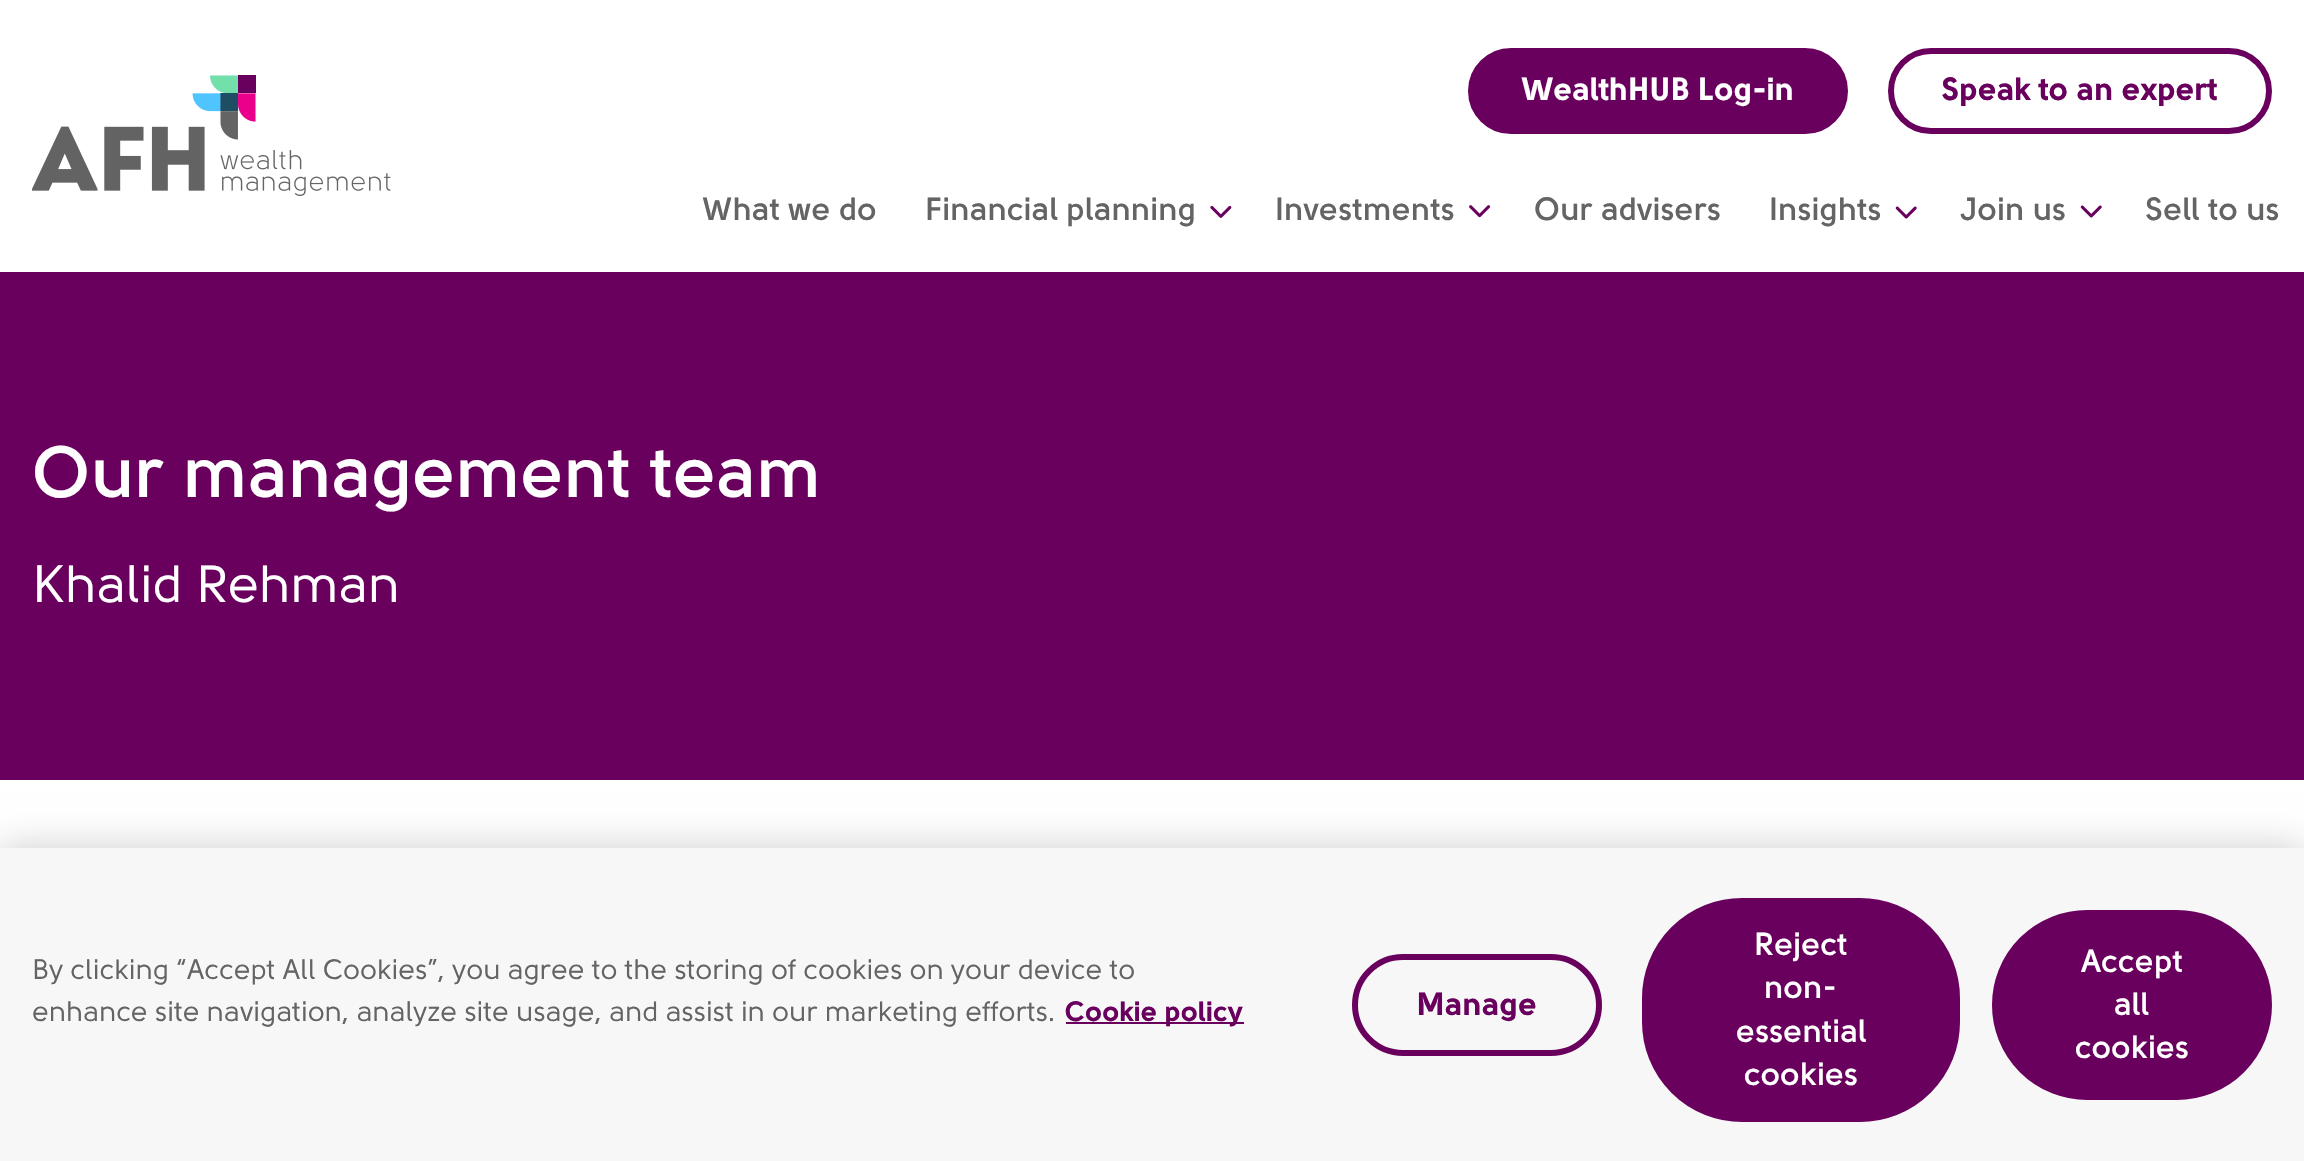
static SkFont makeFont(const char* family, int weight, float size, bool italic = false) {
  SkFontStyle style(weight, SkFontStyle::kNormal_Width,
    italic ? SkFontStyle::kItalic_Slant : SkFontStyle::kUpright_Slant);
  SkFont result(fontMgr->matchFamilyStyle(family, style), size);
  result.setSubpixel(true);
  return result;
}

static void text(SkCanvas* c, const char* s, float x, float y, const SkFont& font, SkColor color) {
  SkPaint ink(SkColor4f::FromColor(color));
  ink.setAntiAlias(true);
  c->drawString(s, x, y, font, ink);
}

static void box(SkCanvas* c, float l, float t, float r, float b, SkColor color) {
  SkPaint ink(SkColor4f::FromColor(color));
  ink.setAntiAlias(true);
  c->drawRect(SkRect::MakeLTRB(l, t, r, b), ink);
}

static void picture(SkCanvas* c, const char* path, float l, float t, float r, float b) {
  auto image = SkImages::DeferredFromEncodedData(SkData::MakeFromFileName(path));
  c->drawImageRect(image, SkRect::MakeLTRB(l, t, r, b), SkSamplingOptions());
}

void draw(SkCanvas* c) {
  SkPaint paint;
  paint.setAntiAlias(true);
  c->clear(0xffffffff);
  picture(c, "img_01.png", 32, 75, 391, 196);
  paint.setColor(0xff6a005d);
  c->drawRoundRect(SkRect::MakeLTRB(1471, 51, 1845, 131), 40, 40, paint);
  paint.setStyle(SkPaint::kStroke_Style);
  paint.setStrokeWidth(6);
  c->drawRoundRect(SkRect::MakeLTRB(1471, 51, 1845, 131), 40, 40, paint);
  SkFont face1 = makeFont("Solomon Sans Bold", 700, 32);
  text(c, "WealthHUB Log-in", 1522, 100, face1, 0xffffffff);
  c->drawRoundRect(SkRect::MakeLTRB(1891, 51, 2269, 131), 40, 40, paint);
  text(c, "Speak to an expert", 1942, 100, face1, 0xff6a005d);
  SkFont face2 = makeFont("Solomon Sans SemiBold", 600, 32);
  text(c, "What we do", 702, 220, face2, 0xff646464);
  text(c, "Financial planning", 925, 220, face2, 0xff646464);
  picture(c, "img_02.png", 1210, 205, 1232, 218);
  text(c, "Investments", 1275, 220, face2, 0xff646464);
  picture(c, "img_03.png", 1469, 205, 1491, 218);
  text(c, "Our advisers", 1534, 220, face2, 0xff646464);
  text(c, "Insights", 1769, 220, face2, 0xff646464);
  picture(c, "img_04.png", 1895, 206, 1917, 219);
  text(c, "Join us", 1960, 220, face2, 0xff646464);
  picture(c, "img_05.png", 2080, 205, 2102, 218);
  text(c, "Sell to us", 2145, 220, face2, 0xff646464);
  box(c, 0, 272, 2304, 780, 0xff6a005d);
  SkFont face3 = makeFont("Solomon Sans SemiBold", 600, 72);
  text(c, "Our management team", 32, 497, face3, 0xffffffff);
  SkFont face4 = makeFont("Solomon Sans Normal", 400, 52);
  text(c, "Khalid Rehman", 32, 602, face4, 0xffffffff);
  paint.setStyle(SkPaint::kFill_Style);
  paint.setColor(0x33000000);
  paint.setMaskFilter(SkMaskFilter::MakeBlur(kNormal_SkBlurStyle, 18));
  c->drawRect(SkRect::MakeLTRB(0, 848, 2304, 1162), paint);
  paint.setMaskFilter(nullptr);
  box(c, 0, 848, 2304, 1161, 0xfff7f7f7);
  SkFont face5 = makeFont("Solomon Sans Normal", 400, 28);
  text(c, "By clicking “Accept All Cookies”, you agree to the storing of cookies on your device to", 32, 979, face5, 0xff646464);
  text(c, "enhance site navigation, analyze site usage, and assist in our marketing efforts.", 32, 1021, face5, 0xff646464);
  box(c, 1066, 1022, 1244, 1024, 0xff6a005d);
  SkFont face6 = makeFont("Solomon Sans Bold", 700, 28);
  text(c, "Cookie policy", 1065, 1021, face6, 0xff6a005d);
  paint.setStyle(SkPaint::kStroke_Style);
  paint.setColor(0xff6a005d);
  c->drawRoundRect(SkRect::MakeLTRB(1355, 957, 1599, 1053), 48, 48, paint);
  text(c, "Manage", 1417, 1015, face1, 0xff6a005d);
  paint.setStyle(SkPaint::kFill_Style);
  c->drawRoundRect(SkRect::MakeLTRB(1643, 899, 1959, 1121), 99, 99, paint);
  paint.setStyle(SkPaint::kStroke_Style);
  paint.setStrokeWidth(2);
  c->drawRoundRect(SkRect::MakeLTRB(1643, 899, 1959, 1121), 99, 99, paint);
  text(c, "Reject", 1754, 955, face2, 0xffffffff);
  text(c, "non-", 1764, 998, face2, 0xffffffff);
  text(c, "essential", 1736, 1042, face2, 0xffffffff);
  text(c, "cookies", 1744, 1085, face2, 0xffffffff);
  paint.setStyle(SkPaint::kFill_Style);
  c->drawRoundRect(SkRect::MakeLTRB(1995, 913, 2269, 1097), 92, 92, paint);
  paint.setStyle(SkPaint::kStroke_Style);
  paint.setStrokeWidth(6);
  c->drawRoundRect(SkRect::MakeLTRB(1995, 913, 2269, 1097), 92, 92, paint);
  text(c, "Accept", 2081, 972, face2, 0xffffffff);
  text(c, "all", 2114, 1015, face2, 0xffffffff);
  text(c, "cookies", 2075, 1058, face2, 0xffffffff);
}
